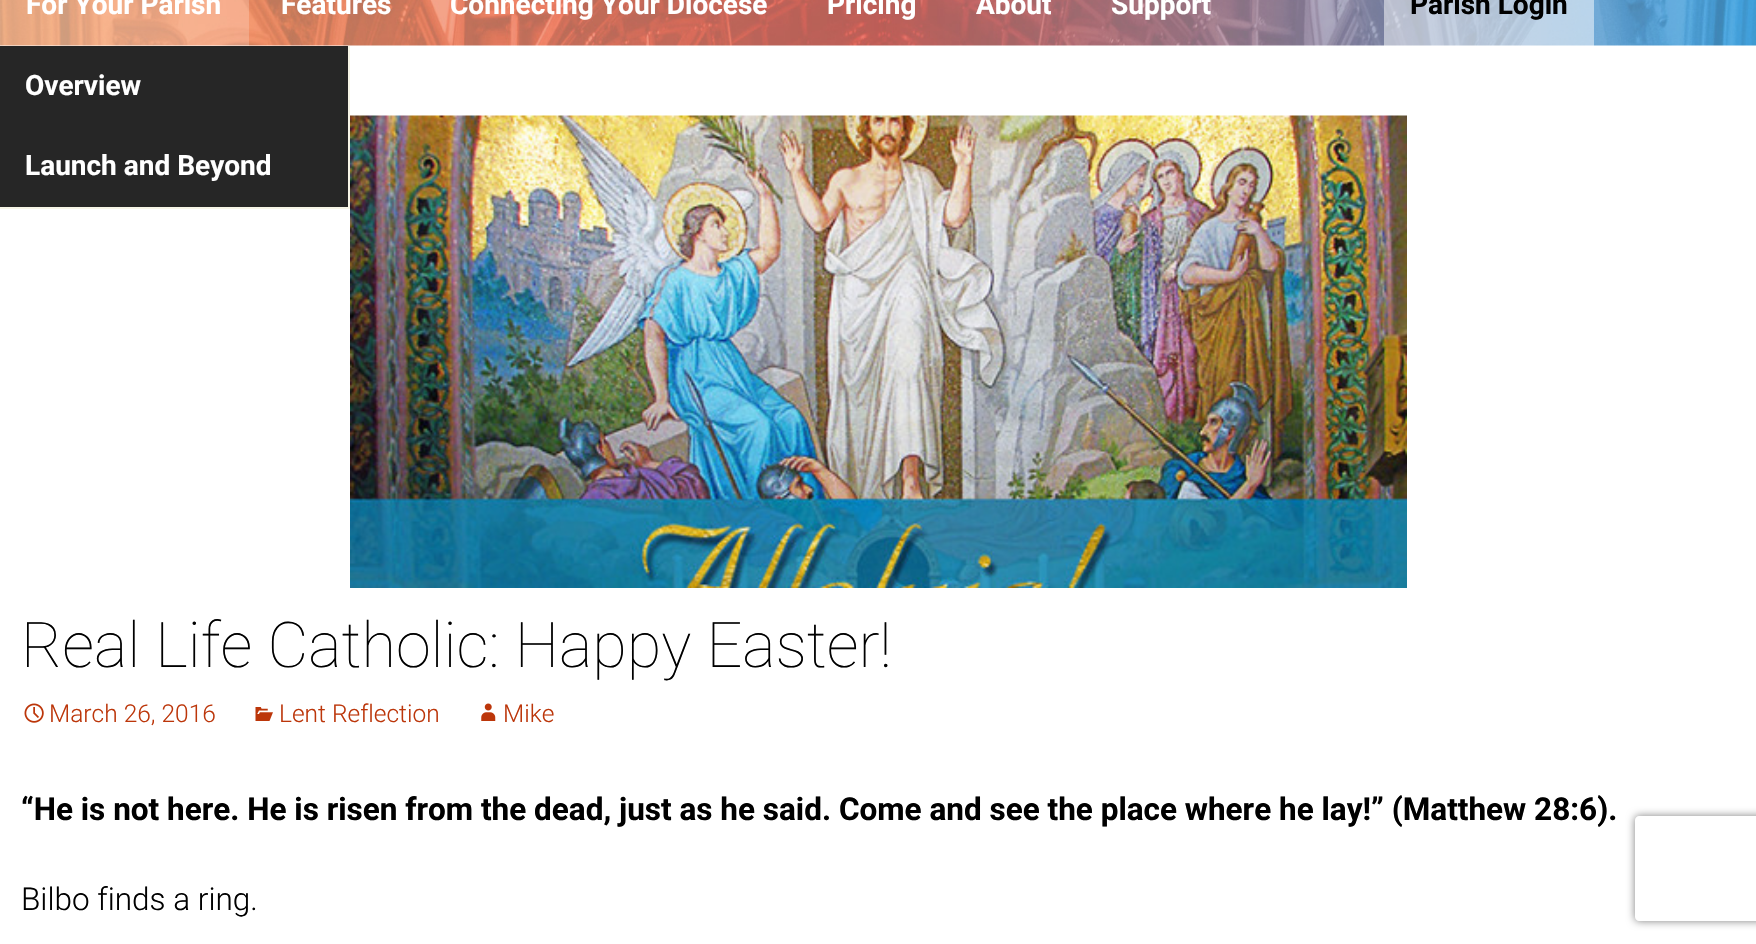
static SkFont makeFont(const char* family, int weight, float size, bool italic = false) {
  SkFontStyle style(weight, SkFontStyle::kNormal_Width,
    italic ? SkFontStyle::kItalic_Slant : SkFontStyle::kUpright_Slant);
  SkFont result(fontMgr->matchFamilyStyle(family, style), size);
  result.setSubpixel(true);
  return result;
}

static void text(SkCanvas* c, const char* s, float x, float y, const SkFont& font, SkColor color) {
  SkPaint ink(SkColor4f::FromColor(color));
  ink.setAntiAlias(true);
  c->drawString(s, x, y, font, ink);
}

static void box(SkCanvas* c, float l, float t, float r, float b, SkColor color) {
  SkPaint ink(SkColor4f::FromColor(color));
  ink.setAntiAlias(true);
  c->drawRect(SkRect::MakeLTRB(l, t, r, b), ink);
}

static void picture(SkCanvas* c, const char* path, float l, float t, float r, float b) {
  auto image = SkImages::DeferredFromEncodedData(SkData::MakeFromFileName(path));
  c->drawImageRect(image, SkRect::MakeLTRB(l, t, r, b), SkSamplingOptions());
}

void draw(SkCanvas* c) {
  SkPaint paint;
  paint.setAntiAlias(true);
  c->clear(0xffffffff);
  picture(c, "img_01.png", 0, 0, 1756, 46);
  box(c, 0, 0, 249, 46, 0x33ffffff);
  SkFont face1 = makeFont("Roboto", 700, 28);
  text(c, "For Your Parish", 26, 14, face1, 0xffffffff);
  box(c, 0, 46, 348, 207, 0xff262626);
  box(c, 348, 46, 350, 208, 0xfff7f5e7);
  box(c, 0, 207, 350, 209, 0xfff7f5e7);
  text(c, "Overview", 25, 95, face1, 0xffffffff);
  text(c, "Launch and Beyond", 25, 175, face1, 0xffffffff);
  text(c, "Features", 281, 14, face1, 0xffffffff);
  text(c, "Connecting Your Diocese", 450, 14, face1, 0xffffffff);
  text(c, "Pricing", 827, 14, face1, 0xffffffff);
  text(c, "About", 976, 14, face1, 0xffffffff);
  text(c, "Support", 1111, 14, face1, 0xffffffff);
  box(c, 1384, 0, 1594, 46, 0x80ffffff);
  text(c, "Parish Login", 1410, 14, face1, 0xff000000);
  picture(c, "img_02.png", 350, 115, 1407, 588);
  SkFont face2 = makeFont("Roboto", 100, 63);
  text(c, "Real Life Catholic: Happy Easter!", 21, 667, face2, 0xff000000);
  picture(c, "img_03.png", 24, 703, 44, 723);
  SkFont face3 = makeFont("Roboto", 300, 24.5f);
  text(c, "March 26, 2016", 49, 722, face3, 0xffbc360a);
  picture(c, "img_04.png", 255, 707, 273, 721);
  text(c, "Lent Reflection", 279, 722, face3, 0xffbc360a);
  picture(c, "img_05.png", 481, 703, 496, 721);
  text(c, "Mike", 503, 722, face3, 0xffbc360a);
  SkFont face4 = makeFont("Roboto", 700, 31.5f);
  text(c, "“He is not here. He is risen from the dead, just as he said. Come and see the place where he lay!” (Matthew 28:6).", 21, 820, face4, 0xff000000);
  SkFont face5 = makeFont("Roboto", 300, 31.5f);
  text(c, "Bilbo finds a ring.", 21, 910, face5, 0xff000000);
  c->save();
  c->clipPath(SkPathBuilder(SkPathFillType::kEvenOdd).moveTo(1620, 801).lineTo(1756, 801).lineTo(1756, 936).lineTo(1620, 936).close().moveTo(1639, 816).lineTo(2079, 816).cubicTo(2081, 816, 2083, 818, 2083, 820).lineTo(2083, 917).cubicTo(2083, 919, 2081, 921, 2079, 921).lineTo(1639, 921).cubicTo(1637, 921, 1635, 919, 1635, 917).lineTo(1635, 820).cubicTo(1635, 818, 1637, 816, 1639, 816).close().detach(), true);
  paint.setColor(0xff808080);
  paint.setMaskFilter(SkMaskFilter::MakeBlur(kNormal_SkBlurStyle, 4.5f));
  c->drawRoundRect(SkRect::MakeLTRB(1635, 816, 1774, 921), 4, 4, paint);
  paint.setMaskFilter(nullptr);
  c->restore();
}
